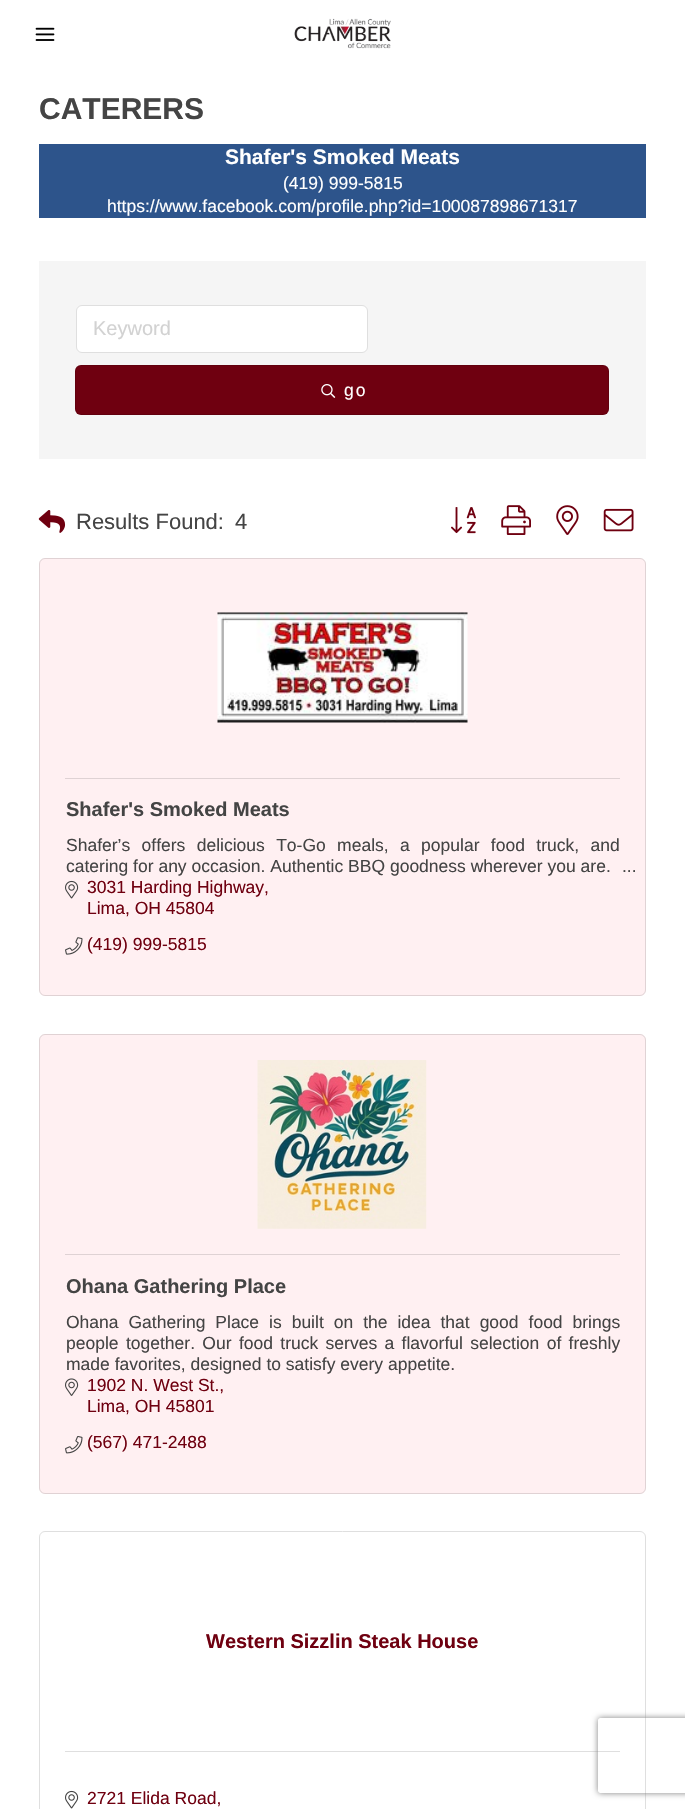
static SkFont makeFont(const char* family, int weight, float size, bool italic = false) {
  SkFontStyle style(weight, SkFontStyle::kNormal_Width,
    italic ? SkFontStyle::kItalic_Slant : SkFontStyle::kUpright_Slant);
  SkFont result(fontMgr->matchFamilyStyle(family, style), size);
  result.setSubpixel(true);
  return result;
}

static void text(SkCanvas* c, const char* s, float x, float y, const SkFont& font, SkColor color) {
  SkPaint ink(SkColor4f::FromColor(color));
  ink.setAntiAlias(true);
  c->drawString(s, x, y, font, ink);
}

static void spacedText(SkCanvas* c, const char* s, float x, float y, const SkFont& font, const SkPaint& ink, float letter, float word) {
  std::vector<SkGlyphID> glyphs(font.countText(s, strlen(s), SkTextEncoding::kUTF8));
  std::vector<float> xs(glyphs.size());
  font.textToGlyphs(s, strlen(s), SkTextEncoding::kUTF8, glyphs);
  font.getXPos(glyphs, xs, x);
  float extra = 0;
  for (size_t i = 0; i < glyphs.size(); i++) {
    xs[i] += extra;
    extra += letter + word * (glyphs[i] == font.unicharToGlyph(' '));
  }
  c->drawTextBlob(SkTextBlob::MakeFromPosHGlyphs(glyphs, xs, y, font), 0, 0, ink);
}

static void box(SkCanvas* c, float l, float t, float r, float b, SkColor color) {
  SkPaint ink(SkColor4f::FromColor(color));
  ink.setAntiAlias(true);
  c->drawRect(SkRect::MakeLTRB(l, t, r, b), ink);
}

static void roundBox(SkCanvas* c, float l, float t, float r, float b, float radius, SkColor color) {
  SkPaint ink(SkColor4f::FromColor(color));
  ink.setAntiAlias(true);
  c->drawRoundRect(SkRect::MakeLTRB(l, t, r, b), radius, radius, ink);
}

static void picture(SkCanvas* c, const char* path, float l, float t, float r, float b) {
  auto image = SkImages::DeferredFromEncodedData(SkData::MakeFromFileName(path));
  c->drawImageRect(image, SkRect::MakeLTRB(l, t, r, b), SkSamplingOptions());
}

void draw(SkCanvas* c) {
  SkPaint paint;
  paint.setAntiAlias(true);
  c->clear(0xffffffff);
  picture(c, "img_01.png", 35, 27, 55, 41);
  picture(c, "img_02.png", 294, 18, 391, 49);
  SkFont face1 = makeFont("Liberation Sans", 700, 30);
  text(c, "CATERERS", 39, 119, face1, 0xff444444);
  box(c, 39, 144, 646, 218, 0xff2d548b);
  SkFont face2 = makeFont("Liberation Sans", 700, 21);
  text(c, "Shafer's Smoked Meats", 225, 164, face2, 0xffffffff);
  SkFont face3 = makeFont("Liberation Sans", 400, 17.5f);
  text(c, "(419) 999-5815", 283, 189, face3, 0xffffffff);
  text(c, "https://www.facebook.com/profile.php?id=100087898671317", 107, 212, face3, 0xffffffff);
  box(c, 39, 261, 646, 459, 0xfff5f5f5);
  paint.setColor(0xffffffff);
  c->drawRoundRect(SkRect::MakeLTRB(76.5f, 305.5f, 367.5f, 352.5f), 5.5f, 5.5f, paint);
  paint.setStyle(SkPaint::kStroke_Style);
  paint.setStrokeWidth(1);
  paint.setColor(0xffdfdfdf);
  c->drawRoundRect(SkRect::MakeLTRB(76.5f, 305.5f, 367.5f, 352.5f), 5.5f, 5.5f, paint);
  SkFont face4 = makeFont("Liberation Sans", 400, 20);
  text(c, "Keyword", 93, 335, face4, 0xffd2d2d2);
  roundBox(c, 75, 365, 609, 415, 6, 0xff6f0010);
  paint.setColor(0x1f000000);
  c->drawRoundRect(SkRect::MakeLTRB(75.5f, 365.5f, 608.5f, 414.5f), 5.5f, 5.5f, paint);
  picture(c, "img_03.png", 321, 384, 336, 398);
  paint.setStyle(SkPaint::kFill_Style);
  paint.setColor(0xffffffff);
  spacedText(c, "go", 344, 396, face3, paint, 2, 0);
  picture(c, "img_04.png", 38, 510, 66, 533);
  SkFont face5 = makeFont("Liberation Sans", 400, 22);
  text(c, "Results Found:", 76, 529, face5, 0xff444444);
  text(c, "4", 235, 529, face5, 0xff444444);
  picture(c, "img_05.png", 451, 507, 476, 534);
  picture(c, "img_06.png", 501, 505, 531, 535);
  picture(c, "img_07.png", 556, 505, 579, 535);
  picture(c, "img_08.png", 603, 508, 634, 532);
  roundBox(c, 39, 558, 646, 996, 6, 0xfffff0f2);
  paint.setStyle(SkPaint::kStroke_Style);
  paint.setColor(0x1f000000);
  c->drawRoundRect(SkRect::MakeLTRB(39.5f, 558.5f, 645.5f, 995.5f), 5.5f, 5.5f, paint);
  picture(c, "img_09.png", 217, 612, 468, 723);
  box(c, 65, 778, 620, 779, 0xffdfd2d4);
  SkFont face6 = makeFont("Liberation Sans", 700, 20);
  text(c, "Shafer's Smoked Meats", 66, 816, face6, 0xff444444);
  paint.setStyle(SkPaint::kFill_Style);
  paint.setColor(0xff444444);
  spacedText(c, "Shafer’s offers delicious To-Go meals, a popular food truck, and", 66, 851, face3, paint, 0, 6.5f);
  text(c, "catering for any occasion. Authentic BBQ goodness wherever you are.", 66, 872, face3, 0xff444444);
  text(c, "...", 622, 872, face3, 0xff444444);
  picture(c, "img_10.png", 65, 880, 79, 899);
  text(c, "3031 Harding Highway,", 87, 893, face3, 0xff6f0010);
  text(c, "Lima, OH 45804", 87, 914, face3, 0xff6f0010);
  picture(c, "img_11.png", 65, 937, 83, 955);
  text(c, "(419) 999-5815", 87, 950, face3, 0xff6f0010);
  roundBox(c, 39, 1034, 646, 1494, 6, 0xfffff0f2);
  paint.setStyle(SkPaint::kStroke_Style);
  paint.setColor(0x1f000000);
  c->drawRoundRect(SkRect::MakeLTRB(39.5f, 1034.5f, 645.5f, 1493.5f), 5.5f, 5.5f, paint);
  picture(c, "img_12.png", 257, 1060, 427, 1229);
  box(c, 65, 1254, 620, 1255, 0xffdfd2d4);
  text(c, "Ohana Gathering Place", 66, 1293, face6, 0xff444444);
  paint.setStyle(SkPaint::kFill_Style);
  paint.setColor(0xff444444);
  spacedText(c, "Ohana Gathering Place is built on the idea that good food brings", 66, 1328, face3, paint, 0, 5.1f);
  spacedText(c, "people together. Our food truck serves a flavorful selection of freshly", 66, 1349, face3, paint, 0, 2.5f);
  text(c, "made favorites, designed to satisfy every appetite.", 66, 1370, face3, 0xff444444);
  picture(c, "img_13.png", 65, 1378, 79, 1396);
  text(c, "1902 N. West St.,", 87, 1391, face3, 0xff6f0010);
  text(c, "Lima, OH 45801", 87, 1412, face3, 0xff6f0010);
  picture(c, "img_14.png", 65, 1436, 83, 1454);
  text(c, "(567) 471-2488", 87, 1448, face3, 0xff6f0010);
  paint.setStyle(SkPaint::kStroke_Style);
  paint.setColor(0xffdfdfdf);
  c->drawRoundRect(SkRect::MakeLTRB(39.5f, 1531.5f, 645.5f, 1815.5f), 5.5f, 5.5f, paint);
  text(c, "Western Sizzlin Steak House", 206, 1648, face6, 0xff6f0010);
  box(c, 65, 1751, 620, 1752, 0xffdfdfdf);
  picture(c, "img_15.png", 65, 1790, 79, 1809);
  text(c, "2721 Elida Road,", 87, 1804, face3, 0xff6f0010);
  c->save();
  c->clipPath(SkPathBuilder(SkPathFillType::kEvenOdd).moveTo(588, 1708).lineTo(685, 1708).lineTo(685, 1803).lineTo(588, 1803).close().moveTo(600.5f, 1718).lineTo(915.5f, 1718).cubicTo(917, 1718, 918, 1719, 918, 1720.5f).lineTo(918, 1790.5f).cubicTo(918, 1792, 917, 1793, 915.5f, 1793).lineTo(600.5f, 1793).cubicTo(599, 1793, 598, 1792, 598, 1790.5f).lineTo(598, 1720.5f).cubicTo(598, 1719, 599, 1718, 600.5f, 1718).close().detach(), true);
  paint.setStyle(SkPaint::kFill_Style);
  paint.setColor(0xff808080);
  paint.setMaskFilter(SkMaskFilter::MakeBlur(kNormal_SkBlurStyle, 3));
  c->drawRoundRect(SkRect::MakeLTRB(598, 1718, 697, 1793), 2.5f, 2.5f, paint);
  paint.setMaskFilter(nullptr);
  c->restore();
}
